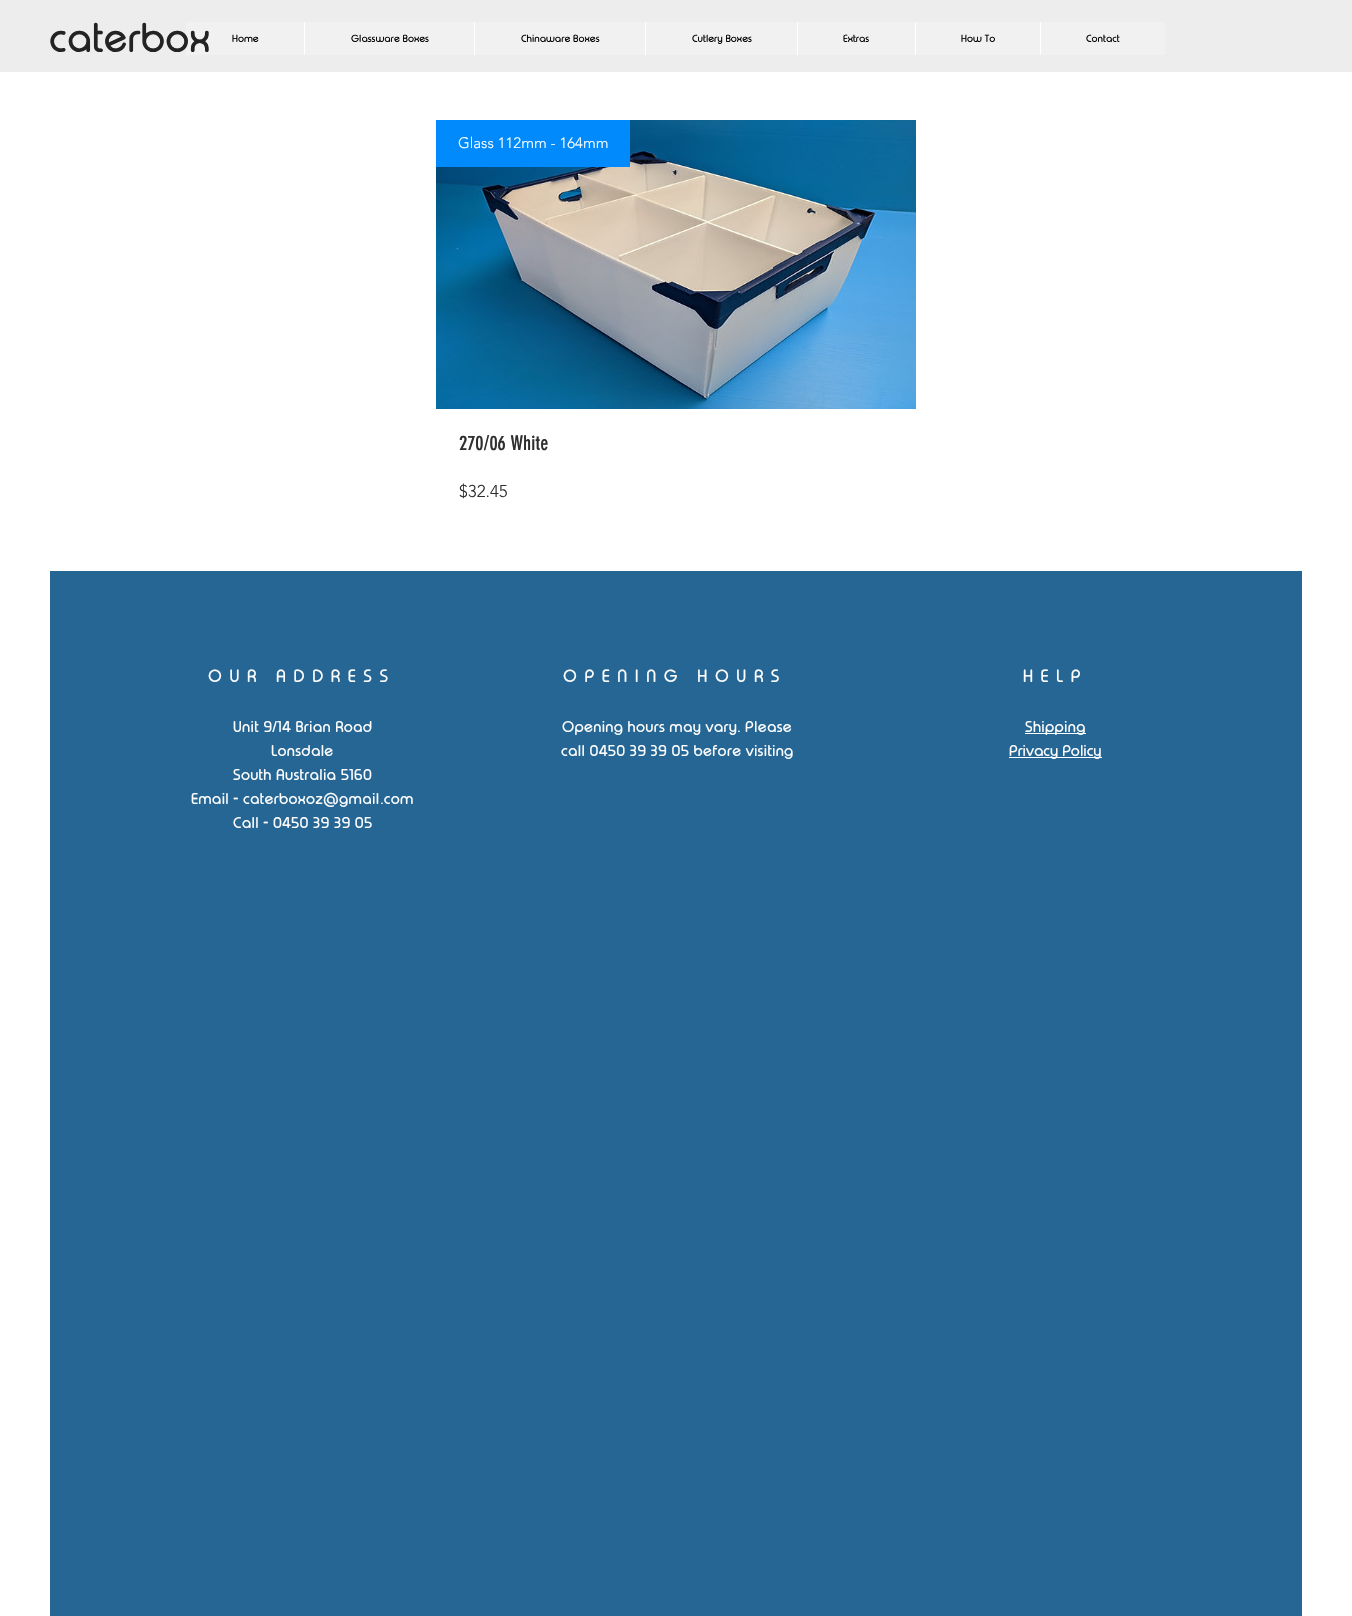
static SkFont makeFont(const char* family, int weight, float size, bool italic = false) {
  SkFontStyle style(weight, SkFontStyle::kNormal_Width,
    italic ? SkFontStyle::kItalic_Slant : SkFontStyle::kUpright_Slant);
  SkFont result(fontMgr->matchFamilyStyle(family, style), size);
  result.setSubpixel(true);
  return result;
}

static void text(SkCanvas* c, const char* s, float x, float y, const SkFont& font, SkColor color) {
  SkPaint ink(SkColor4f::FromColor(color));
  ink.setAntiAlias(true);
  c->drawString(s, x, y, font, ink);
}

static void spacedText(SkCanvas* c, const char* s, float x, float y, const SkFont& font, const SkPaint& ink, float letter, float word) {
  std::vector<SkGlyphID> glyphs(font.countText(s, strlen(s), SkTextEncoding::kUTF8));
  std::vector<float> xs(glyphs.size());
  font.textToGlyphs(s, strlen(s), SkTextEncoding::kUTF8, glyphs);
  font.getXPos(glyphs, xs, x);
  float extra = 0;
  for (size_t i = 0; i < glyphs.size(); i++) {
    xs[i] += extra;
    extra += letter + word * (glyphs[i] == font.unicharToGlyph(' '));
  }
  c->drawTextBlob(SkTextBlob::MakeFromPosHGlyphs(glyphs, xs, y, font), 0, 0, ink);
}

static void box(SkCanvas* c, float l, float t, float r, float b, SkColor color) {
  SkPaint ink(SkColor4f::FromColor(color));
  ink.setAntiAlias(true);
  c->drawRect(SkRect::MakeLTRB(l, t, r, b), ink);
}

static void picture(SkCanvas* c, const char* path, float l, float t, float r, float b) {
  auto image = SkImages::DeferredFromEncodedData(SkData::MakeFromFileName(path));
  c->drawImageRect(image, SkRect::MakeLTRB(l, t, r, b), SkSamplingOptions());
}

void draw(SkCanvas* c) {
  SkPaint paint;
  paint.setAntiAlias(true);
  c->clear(0xffffffff);
  box(c, 0, 0, 1352, 72, 0xffededee);
  box(c, 186, 22, 1165, 55, 0xfff1f1f1);
  SkFont face1 = makeFont("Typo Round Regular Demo", 400, 40);
  text(c, "caterbox", 49, 52, face1, 0xff242323);
  SkFont face2 = makeFont("Typo Round Regular Demo", 400, 10);
  text(c, "Home", 232, 42, face2, 0xff000000);
  box(c, 304, 22, 305, 55, 0xffffffff);
  text(c, "Glassware Boxes", 351, 42, face2, 0xff000000);
  box(c, 474, 22, 475, 55, 0xffffffff);
  text(c, "Chinaware Boxes", 521, 42, face2, 0xff000000);
  box(c, 645, 22, 646, 55, 0xffffffff);
  text(c, "Cutlery Boxes", 692, 42, face2, 0xff000000);
  box(c, 797, 22, 798, 55, 0xffffffff);
  text(c, "Extras", 843, 42, face2, 0xff000000);
  box(c, 915, 22, 916, 55, 0xffffffff);
  text(c, "How To", 961, 42, face2, 0xff000000);
  box(c, 1040, 22, 1041, 55, 0xffffffff);
  text(c, "Contact", 1086, 42, face2, 0xff000000);
  picture(c, "img_01.png", 436, 120, 916, 409);
  box(c, 436, 120, 630, 167, 0xff008afc);
  SkFont face3 = makeFont("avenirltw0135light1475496", 300, 15);
  text(c, "Glass 112mm - 164mm", 458, 148, face3, 0xffffffff);
  SkFont face4 = makeFont("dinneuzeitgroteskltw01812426", 400, 20);
  text(c, "270/06 White", 459, 450, face4, 0xff2f2f30);
  SkFont face5 = makeFont("avenirltw0135light1475496", 300, 17);
  text(c, "$32.45", 459, 497, face5, 0xff2f2f30);
  box(c, 50, 571, 1302, 1616, 0xff266694);
  SkFont face6 = makeFont("Typo Round Regular Demo", 400, 17);
  paint.setColor(0xffffffff);
  spacedText(c, "OUR ADDRESS", 208, 682, face6, paint, 7.6f, 0);
  spacedText(c, "OPENING HOURS", 563, 682, face6, paint, 7.6f, 0);
  spacedText(c, "HELP", 1023, 682, face6, paint, 7.6f, 0);
  SkFont face7 = makeFont("Typo Round Regular Demo", 400, 15);
  spacedText(c, "Unit 9/14 Brian Road", 233, 732, face7, paint, 0.3f, 0);
  spacedText(c, "Lonsdale", 271, 756, face7, paint, 0.3f, 0);
  spacedText(c, "South Australia 5160", 233, 780, face7, paint, 0.3f, 0);
  spacedText(c, "Email - caterboxoz@gmail com", 191, 804, face7, paint, 0.3f, 0);
  spacedText(c, ".", 380, 804, face3, paint, 0.3f, 0);
  spacedText(c, "Call - 0450 39 39 05", 233, 828, face7, paint, 0.3f, 0);
  spacedText(c, "Opening hours may vary", 562, 732, face7, paint, 0.3f, 0);
  spacedText(c, ".", 737, 732, face3, paint, 0.3f, 0);
  spacedText(c, "Please", 745, 732, face7, paint, 0.3f, 0);
  spacedText(c, "call 0450 39 39 05 before visiting", 561, 756, face7, paint, 0.3f, 0);
  box(c, 1025, 733, 1086, 734, 0xffffffff);
  spacedText(c, "Shipping", 1025, 732, face7, paint, 0.3f, 0);
  box(c, 1009, 757, 1102, 758, 0xffffffff);
  text(c, "Privacy Policy", 1009, 756, face7, 0xffffffff);
}
